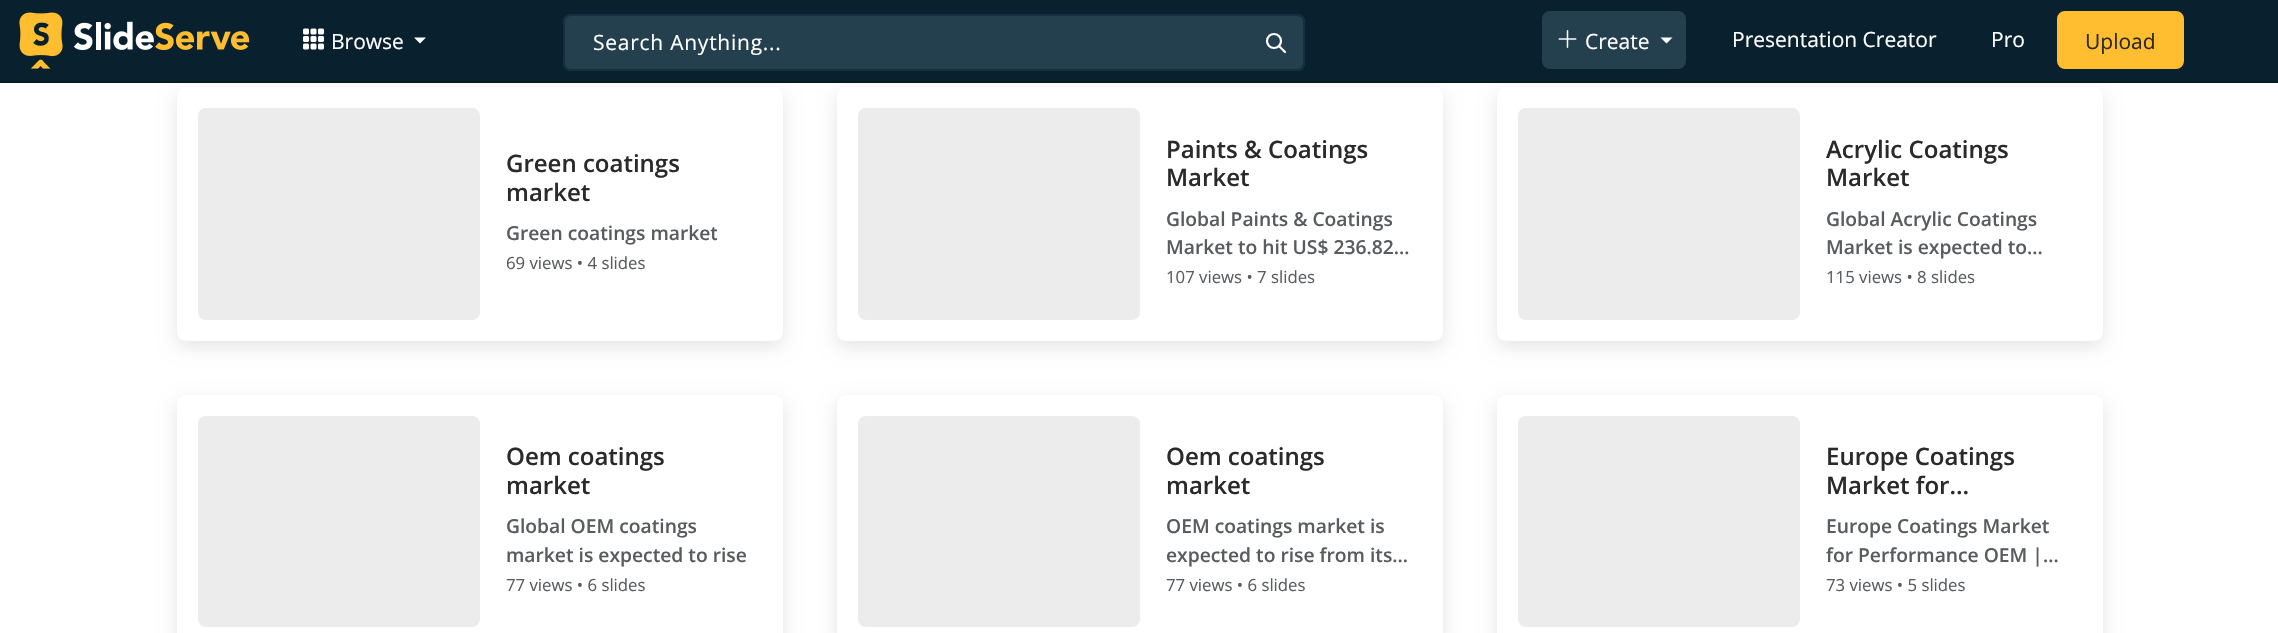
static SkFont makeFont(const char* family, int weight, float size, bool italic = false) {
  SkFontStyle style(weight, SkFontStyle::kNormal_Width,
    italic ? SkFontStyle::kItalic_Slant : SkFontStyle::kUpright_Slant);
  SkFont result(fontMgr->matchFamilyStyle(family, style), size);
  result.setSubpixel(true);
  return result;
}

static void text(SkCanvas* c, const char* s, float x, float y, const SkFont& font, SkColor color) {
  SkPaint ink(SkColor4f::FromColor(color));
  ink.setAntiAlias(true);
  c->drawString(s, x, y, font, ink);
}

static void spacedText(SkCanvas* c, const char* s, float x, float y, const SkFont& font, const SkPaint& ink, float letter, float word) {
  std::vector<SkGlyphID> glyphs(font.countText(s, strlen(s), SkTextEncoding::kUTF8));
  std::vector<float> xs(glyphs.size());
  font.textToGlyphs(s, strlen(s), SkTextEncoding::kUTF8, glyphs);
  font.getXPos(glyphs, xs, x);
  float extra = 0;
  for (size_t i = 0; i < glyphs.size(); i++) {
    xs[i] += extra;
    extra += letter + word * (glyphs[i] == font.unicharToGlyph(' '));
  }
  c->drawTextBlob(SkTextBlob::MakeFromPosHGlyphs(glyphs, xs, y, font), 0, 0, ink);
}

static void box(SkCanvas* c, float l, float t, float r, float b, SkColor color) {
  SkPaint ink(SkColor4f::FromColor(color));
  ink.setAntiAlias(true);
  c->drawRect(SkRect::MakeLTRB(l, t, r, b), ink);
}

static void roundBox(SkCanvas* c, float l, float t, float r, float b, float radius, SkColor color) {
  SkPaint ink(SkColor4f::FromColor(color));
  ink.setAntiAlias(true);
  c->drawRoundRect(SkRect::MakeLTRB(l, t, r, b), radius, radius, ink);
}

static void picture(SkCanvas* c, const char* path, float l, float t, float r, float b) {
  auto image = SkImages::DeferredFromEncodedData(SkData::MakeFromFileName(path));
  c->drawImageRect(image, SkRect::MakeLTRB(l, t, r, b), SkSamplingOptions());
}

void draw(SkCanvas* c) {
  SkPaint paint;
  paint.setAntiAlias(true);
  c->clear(0xffffffff);
  paint.setColor(0x1a000000);
  paint.setMaskFilter(SkMaskFilter::MakeBlur(kNormal_SkBlurStyle, 9));
  c->drawRoundRect(SkRect::MakeLTRB(177, 93, 783, 347), 9, 9, paint);
  paint.setMaskFilter(nullptr);
  paint.setMaskFilter(SkMaskFilter::MakeBlur(kNormal_SkBlurStyle, 9));
  c->drawRoundRect(SkRect::MakeLTRB(837, 93, 1443, 347), 9, 9, paint);
  paint.setMaskFilter(nullptr);
  paint.setMaskFilter(SkMaskFilter::MakeBlur(kNormal_SkBlurStyle, 9));
  c->drawRoundRect(SkRect::MakeLTRB(1497, 93, 2103, 347), 9, 9, paint);
  paint.setMaskFilter(nullptr);
  box(c, 0, 0, 2278, 81, 0xff09212e);
  box(c, 0, 81, 2278, 83, 0xff061924);
  picture(c, "img_01.png", 19, 12, 250, 69);
  picture(c, "img_02.png", 303, 28, 324, 50);
  SkFont face1 = makeFont("Open Sans", 400, 21);
  text(c, "Browse", 331, 49, face1, 0xffffffff);
  paint.setColor(0xffffffff);
  c->drawPath(SkPathBuilder().moveTo(414, 37.5f).lineTo(426, 37.5f).lineTo(420, 43.5f).close().detach(), paint);
  paint.setColor(0xff243f4e);
  c->drawRoundRect(SkRect::MakeLTRB(1543, 12, 1685, 68), 7, 7, paint);
  paint.setStyle(SkPaint::kStroke_Style);
  paint.setStrokeWidth(2);
  c->drawRoundRect(SkRect::MakeLTRB(1543, 12, 1685, 68), 7, 7, paint);
  picture(c, "img_03.png", 1558, 30, 1577, 48);
  text(c, "Create", 1585, 49, face1, 0xffffffff);
  paint.setStyle(SkPaint::kFill_Style);
  paint.setColor(0xffffffff);
  c->drawPath(SkPathBuilder().moveTo(1660.5f, 37.5f).lineTo(1672.5f, 37.5f).lineTo(1666.5f, 43.5f).close().detach(), paint);
  text(c, "Presentation Creator", 1732, 47, face1, 0xffffffff);
  text(c, "Pro", 1991, 47, face1, 0xffffffff);
  paint.setColor(0xffffbe2f);
  c->drawRoundRect(SkRect::MakeLTRB(2058, 12, 2183, 68), 7, 7, paint);
  paint.setStyle(SkPaint::kStroke_Style);
  c->drawRoundRect(SkRect::MakeLTRB(2058, 12, 2183, 68), 7, 7, paint);
  text(c, "Upload", 2085, 49, face1, 0xff2b2a2a);
  roundBox(c, 563, 14, 1305, 71, 8, 0xff243f4e);
  paint.setStrokeWidth(2.2f);
  paint.setColor(0xffffffff);
  c->drawCircle(1274, 41, 7, paint);
  paint.setStrokeCap(SkPaint::kRound_Cap);
  paint.setStrokeJoin(SkPaint::kRound_Join);
  c->drawPath(SkPathBuilder().moveTo(1285, 52).lineTo(1279, 46).detach(), paint);
  paint.setStrokeWidth(2);
  paint.setStrokeCap(SkPaint::kButt_Cap);
  paint.setStrokeJoin(SkPaint::kMiter_Join);
  paint.setColor(0xff152e40);
  c->drawRoundRect(SkRect::MakeLTRB(564, 15, 1304, 70), 7, 7, paint);
  paint.setStyle(SkPaint::kFill_Style);
  paint.setColor(0xffffffff);
  spacedText(c, "Search Anything...", 593, 50, face1, paint, 0.75f, 0);
  roundBox(c, 177, 87, 783, 341, 9, 0xffffffff);
  roundBox(c, 198, 108, 480, 320, 8, 0xffececec);
  SkFont face2 = makeFont("Open Sans", 600, 24);
  text(c, "Green coatings", 506, 172, face2, 0xff2b2a2a);
  text(c, "market", 506, 201, face2, 0xff2b2a2a);
  c->save();
  c->clipRect(SkRect::MakeLTRB(507, 219, 717, 248));
  SkFont face3 = makeFont("Open Sans", 600, 19.25f);
  text(c, "Green coatings market", 506, 240, face3, 0xff595c5f);
  c->restore();
  SkFont face4 = makeFont("Open Sans", 400, 16.75f);
  text(c, "69 views • 4 slides", 506, 269, face4, 0xff595c5f);
  roundBox(c, 837, 87, 1443, 341, 9, 0xffffffff);
  roundBox(c, 858, 108, 1140, 320, 8, 0xffececec);
  text(c, "Paints & Coatings", 1166, 158, face2, 0xff2b2a2a);
  text(c, "Market", 1166, 186, face2, 0xff2b2a2a);
  text(c, "Global Paints & Coatings", 1166, 226, face3, 0xff595c5f);
  text(c, "Market to hit US$ 236.82…", 1166, 254, face3, 0xff595c5f);
  text(c, "107 views • 7 slides", 1166, 283, face4, 0xff595c5f);
  roundBox(c, 1497, 87, 2103, 341, 9, 0xffffffff);
  roundBox(c, 1518, 108, 1800, 320, 8, 0xffececec);
  text(c, "Acrylic Coatings", 1826, 158, face2, 0xff2b2a2a);
  text(c, "Market", 1826, 186, face2, 0xff2b2a2a);
  text(c, "Global Acrylic Coatings", 1826, 226, face3, 0xff595c5f);
  text(c, "Market is expected to…", 1826, 254, face3, 0xff595c5f);
  text(c, "115 views • 8 slides", 1826, 283, face4, 0xff595c5f);
  c->save();
  c->clipPath(SkPathBuilder(SkPathFillType::kEvenOdd).moveTo(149, 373).lineTo(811, 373).lineTo(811, 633).lineTo(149, 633).close().moveTo(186, 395).lineTo(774, 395).cubicTo(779, 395, 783, 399, 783, 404).lineTo(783, 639).cubicTo(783, 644, 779, 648, 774, 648).lineTo(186, 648).cubicTo(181, 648, 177, 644, 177, 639).lineTo(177, 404).cubicTo(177, 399, 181, 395, 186, 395).close().detach(), true);
  paint.setColor(0x1a000000);
  paint.setMaskFilter(SkMaskFilter::MakeBlur(kNormal_SkBlurStyle, 9));
  c->drawRoundRect(SkRect::MakeLTRB(177, 401, 783, 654), 9, 9, paint);
  paint.setMaskFilter(nullptr);
  c->restore();
  roundBox(c, 198, 416, 480, 627, 8, 0xffececec);
  text(c, "Oem coatings", 506, 465, face2, 0xff2b2a2a);
  text(c, "market", 506, 494, face2, 0xff2b2a2a);
  text(c, "Global OEM coatings", 506, 533, face3, 0xff595c5f);
  text(c, "market is expected to rise", 506, 562, face3, 0xff595c5f);
  text(c, "77 views • 6 slides", 506, 591, face4, 0xff595c5f);
  c->save();
  c->clipPath(SkPathBuilder(SkPathFillType::kEvenOdd).moveTo(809, 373).lineTo(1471, 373).lineTo(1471, 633).lineTo(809, 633).close().moveTo(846, 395).lineTo(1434, 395).cubicTo(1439, 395, 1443, 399, 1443, 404).lineTo(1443, 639).cubicTo(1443, 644, 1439, 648, 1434, 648).lineTo(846, 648).cubicTo(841, 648, 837, 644, 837, 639).lineTo(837, 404).cubicTo(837, 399, 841, 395, 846, 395).close().detach(), true);
  paint.setMaskFilter(SkMaskFilter::MakeBlur(kNormal_SkBlurStyle, 9));
  c->drawRoundRect(SkRect::MakeLTRB(837, 401, 1443, 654), 9, 9, paint);
  paint.setMaskFilter(nullptr);
  c->restore();
  roundBox(c, 858, 416, 1140, 627, 8, 0xffececec);
  text(c, "Oem coatings", 1166, 465, face2, 0xff2b2a2a);
  text(c, "market", 1166, 494, face2, 0xff2b2a2a);
  text(c, "OEM coatings market is", 1166, 533, face3, 0xff595c5f);
  text(c, "expected to rise from its…", 1166, 562, face3, 0xff595c5f);
  text(c, "77 views • 6 slides", 1166, 591, face4, 0xff595c5f);
  c->save();
  c->clipPath(SkPathBuilder(SkPathFillType::kEvenOdd).moveTo(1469, 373).lineTo(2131, 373).lineTo(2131, 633).lineTo(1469, 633).close().moveTo(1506, 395).lineTo(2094, 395).cubicTo(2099, 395, 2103, 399, 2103, 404).lineTo(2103, 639).cubicTo(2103, 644, 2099, 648, 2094, 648).lineTo(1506, 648).cubicTo(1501, 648, 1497, 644, 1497, 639).lineTo(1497, 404).cubicTo(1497, 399, 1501, 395, 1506, 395).close().detach(), true);
  paint.setMaskFilter(SkMaskFilter::MakeBlur(kNormal_SkBlurStyle, 9));
  c->drawRoundRect(SkRect::MakeLTRB(1497, 401, 2103, 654), 9, 9, paint);
  paint.setMaskFilter(nullptr);
  c->restore();
  roundBox(c, 1518, 416, 1800, 627, 8, 0xffececec);
  text(c, "Europe Coatings", 1826, 465, face2, 0xff2b2a2a);
  text(c, "Market for…", 1826, 494, face2, 0xff2b2a2a);
  text(c, "Europe Coatings Market", 1826, 533, face3, 0xff595c5f);
  text(c, "for Performance OEM |…", 1826, 562, face3, 0xff595c5f);
  text(c, "73 views • 5 slides", 1826, 591, face4, 0xff595c5f);
}
